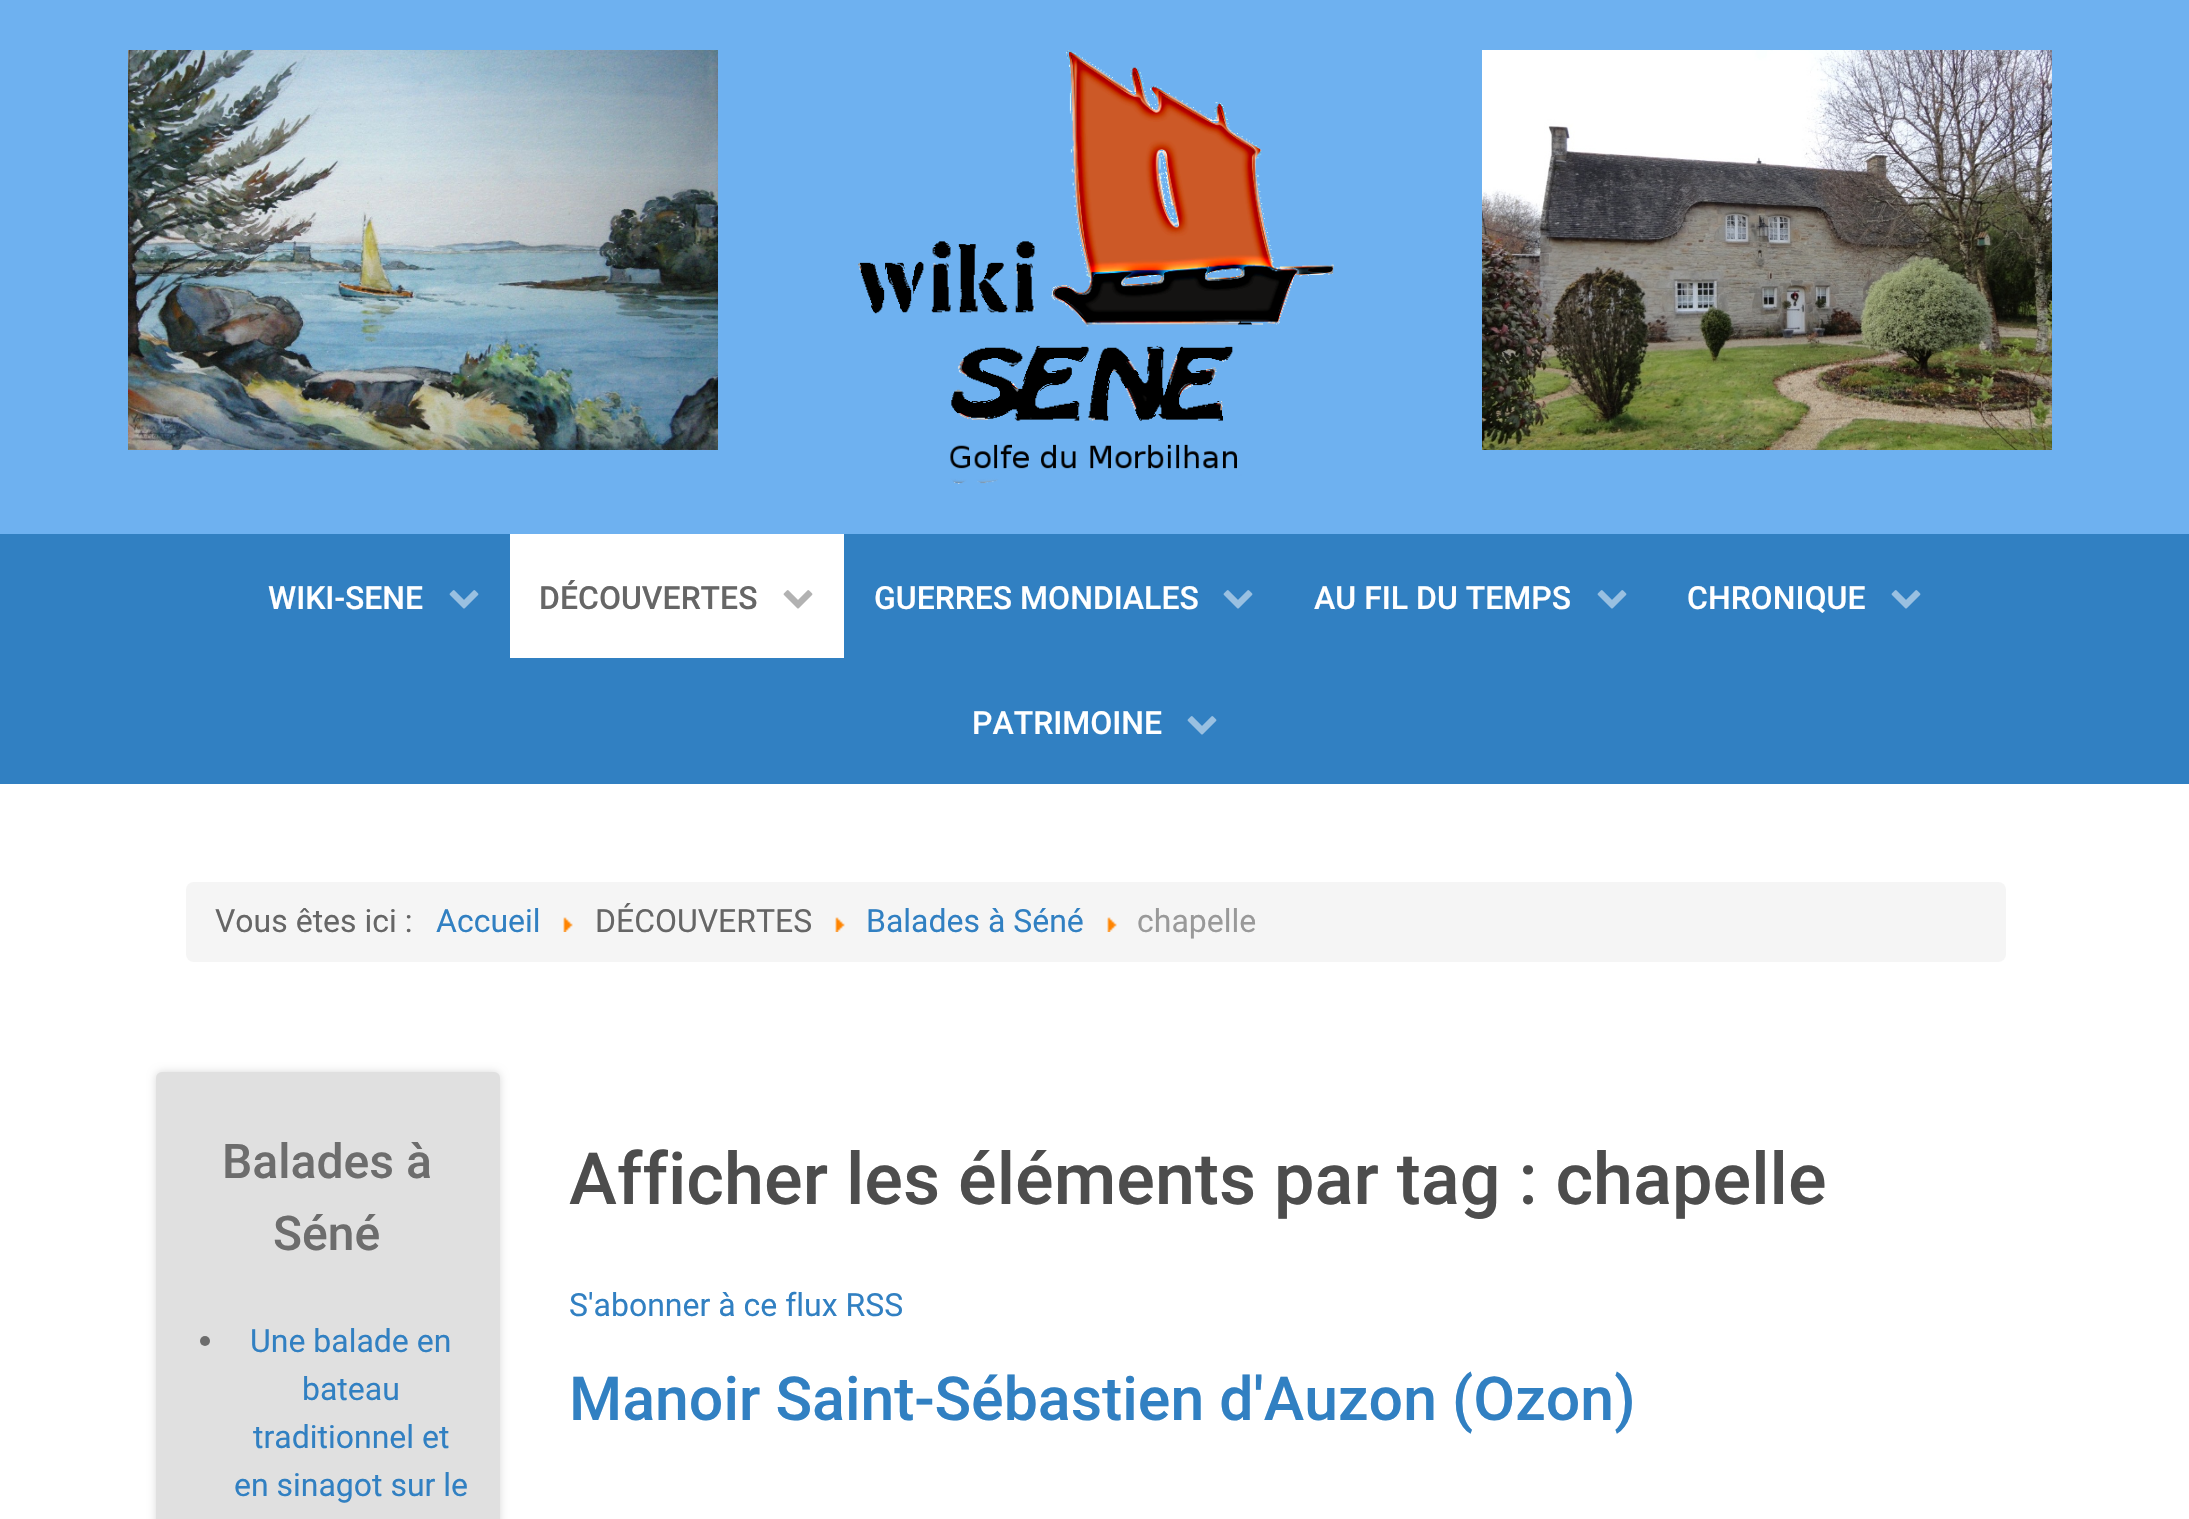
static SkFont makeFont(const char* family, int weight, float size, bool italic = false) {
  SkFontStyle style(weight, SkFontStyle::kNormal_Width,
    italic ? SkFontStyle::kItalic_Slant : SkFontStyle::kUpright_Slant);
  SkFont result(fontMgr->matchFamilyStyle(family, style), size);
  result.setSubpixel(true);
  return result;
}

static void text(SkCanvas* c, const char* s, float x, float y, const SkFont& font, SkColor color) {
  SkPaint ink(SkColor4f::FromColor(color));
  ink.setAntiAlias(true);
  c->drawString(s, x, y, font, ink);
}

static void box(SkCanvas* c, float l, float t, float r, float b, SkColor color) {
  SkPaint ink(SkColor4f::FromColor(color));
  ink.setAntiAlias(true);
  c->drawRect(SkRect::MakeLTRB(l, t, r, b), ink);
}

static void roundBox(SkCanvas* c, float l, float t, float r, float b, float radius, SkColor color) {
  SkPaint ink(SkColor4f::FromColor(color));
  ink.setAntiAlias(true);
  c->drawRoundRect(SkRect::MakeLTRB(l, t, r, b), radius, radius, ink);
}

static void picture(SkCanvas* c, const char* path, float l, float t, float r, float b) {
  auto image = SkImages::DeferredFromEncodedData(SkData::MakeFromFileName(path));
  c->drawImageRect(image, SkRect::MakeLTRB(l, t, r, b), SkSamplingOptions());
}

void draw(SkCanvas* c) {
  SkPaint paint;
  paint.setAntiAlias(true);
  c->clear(0xffffffff);
  box(c, 0, 0, 2189, 534, 0xff6eb1f0);
  picture(c, "img_01.png", 128, 50, 718, 450);
  picture(c, "img_02.png", 858, 50, 1334, 484);
  picture(c, "img_03.png", 1482, 50, 2052, 450);
  box(c, 0, 534, 2189, 784, 0xff3180c2);
  SkFont face1 = makeFont("Roboto", 500, 32);
  text(c, "WIKI-SENE", 268, 609, face1, 0xffffffff);
  picture(c, "img_04.png", 449, 590, 479, 609);
  box(c, 510, 534, 844, 658, 0xffffffff);
  text(c, "DÉCOUVERTES", 539, 609, face1, 0xff666666);
  picture(c, "img_05.png", 783, 590, 813, 609);
  text(c, "GUERRES MONDIALES", 874, 609, face1, 0xffffffff);
  picture(c, "img_04.png", 1223, 590, 1253, 609);
  text(c, "AU FIL DU TEMPS", 1314, 609, face1, 0xffffffff);
  picture(c, "img_04.png", 1597, 590, 1627, 609);
  text(c, "CHRONIQUE", 1687, 609, face1, 0xffffffff);
  picture(c, "img_04.png", 1891, 590, 1921, 609);
  text(c, "PATRIMOINE", 972, 734, face1, 0xffffffff);
  picture(c, "img_04.png", 1187, 716, 1217, 735);
  roundBox(c, 186, 882, 2006, 962, 8, 0xfff5f5f5);
  SkFont face2 = makeFont("Roboto", 400, 32);
  text(c, "Vous êtes ici :", 215, 932, face2, 0xff666666);
  text(c, "Accueil", 436, 932, face2, 0xff3180c2);
  picture(c, "img_06.png", 563, 917, 573, 932);
  text(c, "DÉCOUVERTES", 595, 932, face2, 0xff666666);
  picture(c, "img_06.png", 835, 917, 845, 932);
  text(c, "Balades à Séné", 866, 932, face2, 0xff3180c2);
  picture(c, "img_06.png", 1107, 917, 1117, 932);
  text(c, "chapelle", 1137, 932, face2, 0xff999999);
  paint.setColor(0x26000000);
  paint.setMaskFilter(SkMaskFilter::MakeBlur(kNormal_SkBlurStyle, 4));
  c->drawRoundRect(SkRect::MakeLTRB(156, 1072, 500, 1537), 6, 6, paint);
  paint.setMaskFilter(nullptr);
  roundBox(c, 156, 1072, 500, 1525, 6, 0xffe0e0e0);
  SkFont face3 = makeFont("Roboto", 500, 48);
  text(c, "Balades à", 222, 1178, face3, 0xff6d6d6d);
  text(c, "Séné", 273, 1250, face3, 0xff6d6d6d);
  paint.setColor(0xff6d6d6d);
  c->drawCircle(205, 1341, 5, paint);
  text(c, "Une balade en", 250, 1352, face2, 0xff3180c2);
  text(c, "bateau", 302, 1400, face2, 0xff3180c2);
  text(c, "traditionnel et", 253, 1448, face2, 0xff3180c2);
  text(c, "en sinagot sur le", 234, 1496, face2, 0xff3180c2);
  SkFont face4 = makeFont("Roboto", 500, 72);
  text(c, "Afficher les éléments par tag : chapelle", 569, 1204, face4, 0xff4d4d4d);
  text(c, "S'abonner à ce flux RSS", 569, 1316, face2, 0xff3180c2);
  SkFont face5 = makeFont("Roboto", 500, 60.75f);
  text(c, "Manoir Saint-Sébastien d'Auzon (Ozon)", 569, 1420, face5, 0xff3180c2);
}
